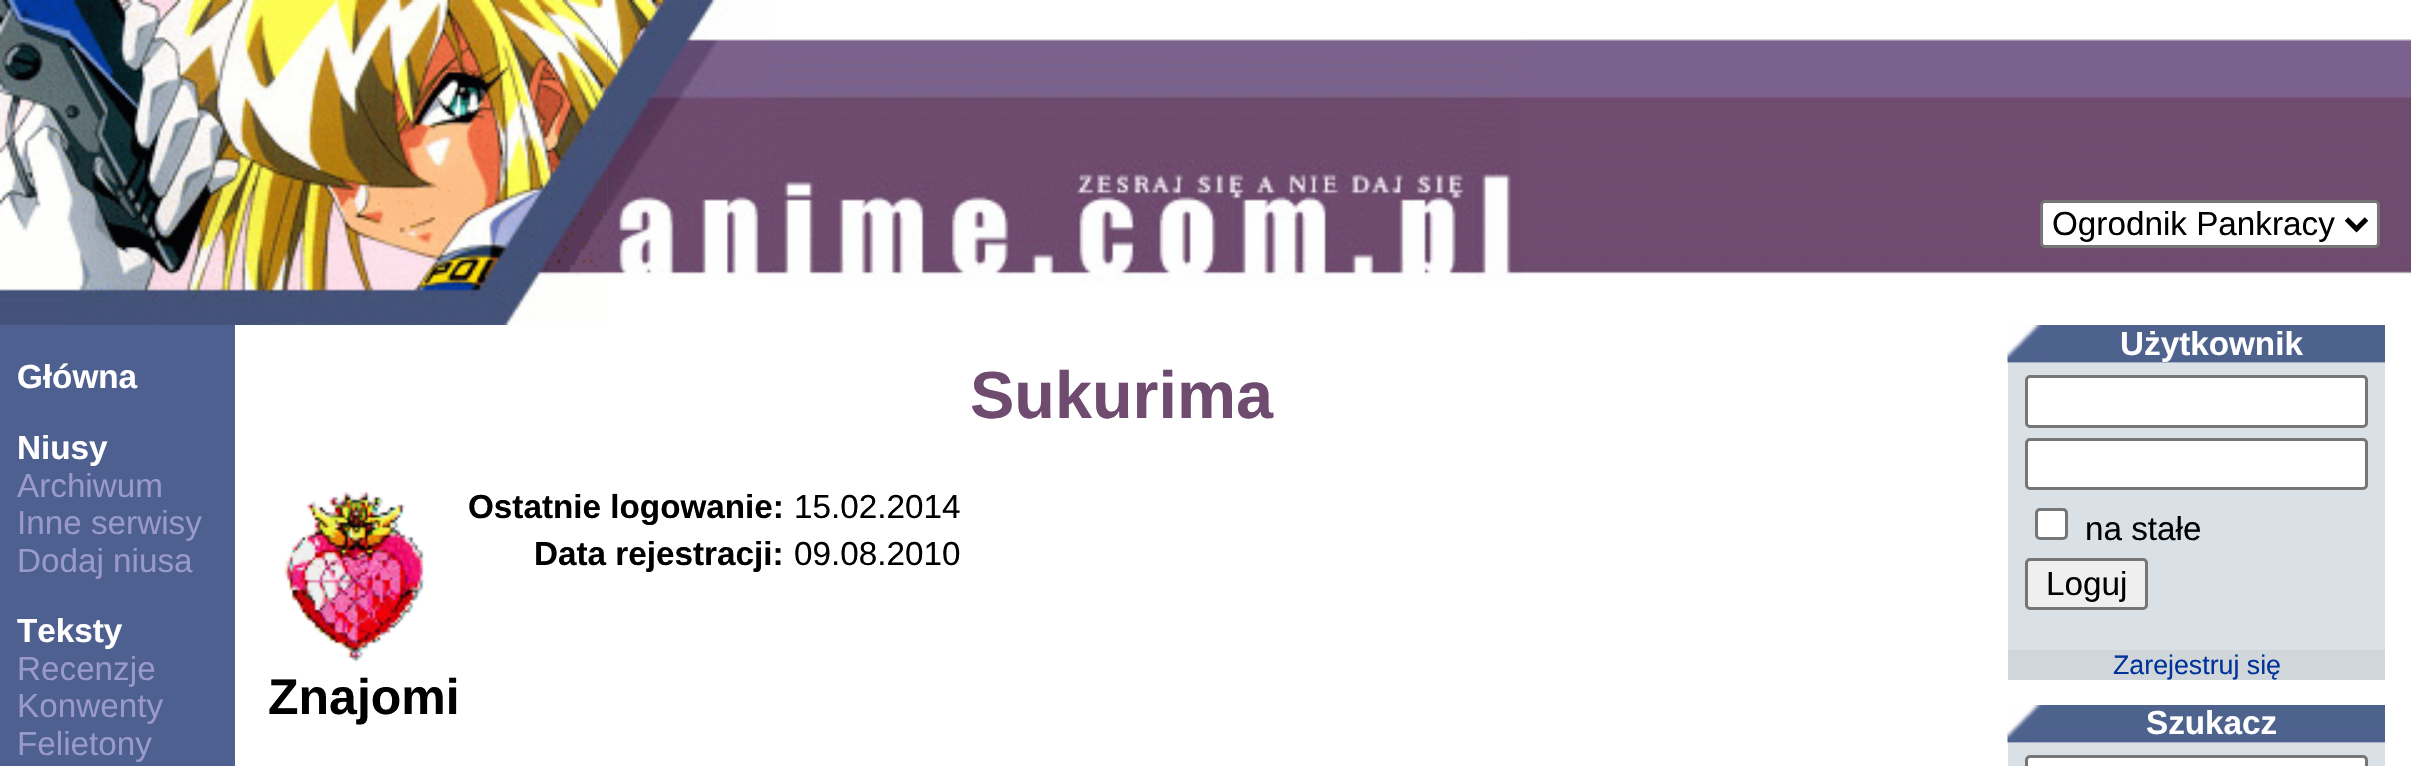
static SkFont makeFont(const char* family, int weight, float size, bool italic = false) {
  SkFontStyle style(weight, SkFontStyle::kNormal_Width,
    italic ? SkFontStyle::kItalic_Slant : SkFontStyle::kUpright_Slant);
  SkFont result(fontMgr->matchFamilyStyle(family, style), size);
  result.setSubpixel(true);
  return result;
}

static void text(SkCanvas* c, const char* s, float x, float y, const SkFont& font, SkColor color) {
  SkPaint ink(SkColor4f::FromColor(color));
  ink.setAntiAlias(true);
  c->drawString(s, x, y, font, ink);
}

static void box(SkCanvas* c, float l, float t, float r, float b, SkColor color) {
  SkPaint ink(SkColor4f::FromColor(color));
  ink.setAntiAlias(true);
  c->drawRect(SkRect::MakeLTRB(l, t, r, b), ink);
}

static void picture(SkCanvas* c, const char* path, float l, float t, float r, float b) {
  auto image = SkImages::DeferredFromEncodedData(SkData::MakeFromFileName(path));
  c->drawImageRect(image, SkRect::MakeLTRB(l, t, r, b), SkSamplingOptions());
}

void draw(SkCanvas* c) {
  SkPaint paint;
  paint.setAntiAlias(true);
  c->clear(0xffffffff);
  picture(c, "img_01.png", 607, 39, 2411, 274);
  picture(c, "img_02.png", 0, 0, 608, 325);
  picture(c, "img_03.png", 607, 0, 770, 280);
  picture(c, "img_04.png", 770, 39, 1523, 282);
  paint.setColor(0xffffffff);
  c->drawRoundRect(SkRect::MakeLTRB(2041.5f, 201.5f, 2378.5f, 246.5f), 3.5f, 3.5f, paint);
  paint.setStyle(SkPaint::kStroke_Style);
  paint.setStrokeWidth(3);
  paint.setColor(0xff767676);
  c->drawRoundRect(SkRect::MakeLTRB(2041.5f, 201.5f, 2378.5f, 246.5f), 3.5f, 3.5f, paint);
  paint.setStrokeWidth(5);
  paint.setColor(0xff000000);
  c->drawPath(SkPathBuilder().moveTo(2346.5f, 219).lineTo(2356.5f, 229).lineTo(2366.5f, 219).detach(), paint);
  SkFont face1 = makeFont("Liberation Sans", 400, 33.25f);
  text(c, "Ogrodnik Pankracy", 2052, 235, face1, 0xff000000);
  box(c, 0, 325, 235, 766, 0xff4e608f);
  SkFont face2 = makeFont("Liberation Sans", 700, 33.25f);
  text(c, "Główna", 17, 388, face2, 0xffffffff);
  text(c, "Niusy", 17, 459, face2, 0xffffffff);
  text(c, "Archiwum", 17, 497, face1, 0xff9999cc);
  text(c, "Inne serwisy", 17, 534, face1, 0xff9999cc);
  text(c, "Dodaj niusa", 17, 572, face1, 0xff9999cc);
  text(c, "Teksty", 17, 642, face2, 0xffffffff);
  text(c, "Recenzje", 17, 680, face1, 0xff9999cc);
  text(c, "Konwenty", 17, 717, face1, 0xff9999cc);
  text(c, "Felietony", 17, 755, face1, 0xff9999cc);
  SkFont face3 = makeFont("Liberation Sans", 700, 66.5f);
  text(c, "Sukurima", 970, 418, face3, 0xff6f4b6f);
  picture(c, "img_05.png", 284, 491, 426, 663);
  text(c, "Ostatnie logowanie:", 468, 518, face2, 0xff000000);
  text(c, "15.02.2014", 794, 518, face1, 0xff000000);
  text(c, "Data rejestracji:", 534, 565, face2, 0xff000000);
  text(c, "09.08.2010", 794, 565, face1, 0xff000000);
  SkFont face4 = makeFont("Liberation Sans", 700, 50);
  text(c, "Znajomi", 268, 714, face4, 0xff000000);
  picture(c, "img_06.png", 2007, 325, 2385, 363);
  text(c, "Użytkownik", 2120, 355, face2, 0xffffffff);
  box(c, 2008, 363, 2385, 650, 0xffd9e0e6);
  paint.setStyle(SkPaint::kFill_Style);
  paint.setColor(0xffffffff);
  c->drawRoundRect(SkRect::MakeLTRB(2026.5f, 376.5f, 2366.5f, 426.5f), 3.5f, 3.5f, paint);
  paint.setStyle(SkPaint::kStroke_Style);
  paint.setStrokeWidth(3);
  paint.setColor(0xff767676);
  c->drawRoundRect(SkRect::MakeLTRB(2026.5f, 376.5f, 2366.5f, 426.5f), 3.5f, 3.5f, paint);
  paint.setStyle(SkPaint::kFill_Style);
  paint.setColor(0xffffffff);
  c->drawRoundRect(SkRect::MakeLTRB(2026.5f, 439.5f, 2366.5f, 488.5f), 3.5f, 3.5f, paint);
  paint.setStyle(SkPaint::kStroke_Style);
  paint.setColor(0xff767676);
  c->drawRoundRect(SkRect::MakeLTRB(2026.5f, 439.5f, 2366.5f, 488.5f), 3.5f, 3.5f, paint);
  paint.setStyle(SkPaint::kFill_Style);
  paint.setColor(0xffffffff);
  c->drawRoundRect(SkRect::MakeLTRB(2036.5f, 509.5f, 2066.5f, 538.5f), 3.5f, 3.5f, paint);
  paint.setStyle(SkPaint::kStroke_Style);
  paint.setColor(0xff767676);
  c->drawRoundRect(SkRect::MakeLTRB(2036.5f, 509.5f, 2066.5f, 538.5f), 3.5f, 3.5f, paint);
  text(c, "na stałe", 2085, 540, face1, 0xff000000);
  paint.setStyle(SkPaint::kFill_Style);
  paint.setColor(0xffefefef);
  c->drawRoundRect(SkRect::MakeLTRB(2026.5f, 559.5f, 2146.5f, 608.5f), 3.5f, 3.5f, paint);
  paint.setStyle(SkPaint::kStroke_Style);
  paint.setColor(0xff767676);
  c->drawRoundRect(SkRect::MakeLTRB(2026.5f, 559.5f, 2146.5f, 608.5f), 3.5f, 3.5f, paint);
  text(c, "Loguj", 2046, 595, face1, 0xff000000);
  box(c, 2008, 650, 2385, 680, 0xffd0d6da);
  SkFont face5 = makeFont("Liberation Sans", 400, 26.75f);
  text(c, "Zarejestruj się", 2113, 674, face5, 0xff003399);
  picture(c, "img_06.png", 2007, 705, 2385, 743);
  text(c, "Szukacz", 2146, 734, face2, 0xffffffff);
  box(c, 2008, 743, 2385, 766, 0xffd9e0e6);
  paint.setStyle(SkPaint::kFill_Style);
  paint.setColor(0xffffffff);
  c->drawRoundRect(SkRect::MakeLTRB(2026.5f, 756.5f, 2366.5f, 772.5f), 3.5f, 3.5f, paint);
  paint.setStyle(SkPaint::kStroke_Style);
  paint.setColor(0xff767676);
  c->drawRoundRect(SkRect::MakeLTRB(2026.5f, 756.5f, 2366.5f, 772.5f), 3.5f, 3.5f, paint);
}
